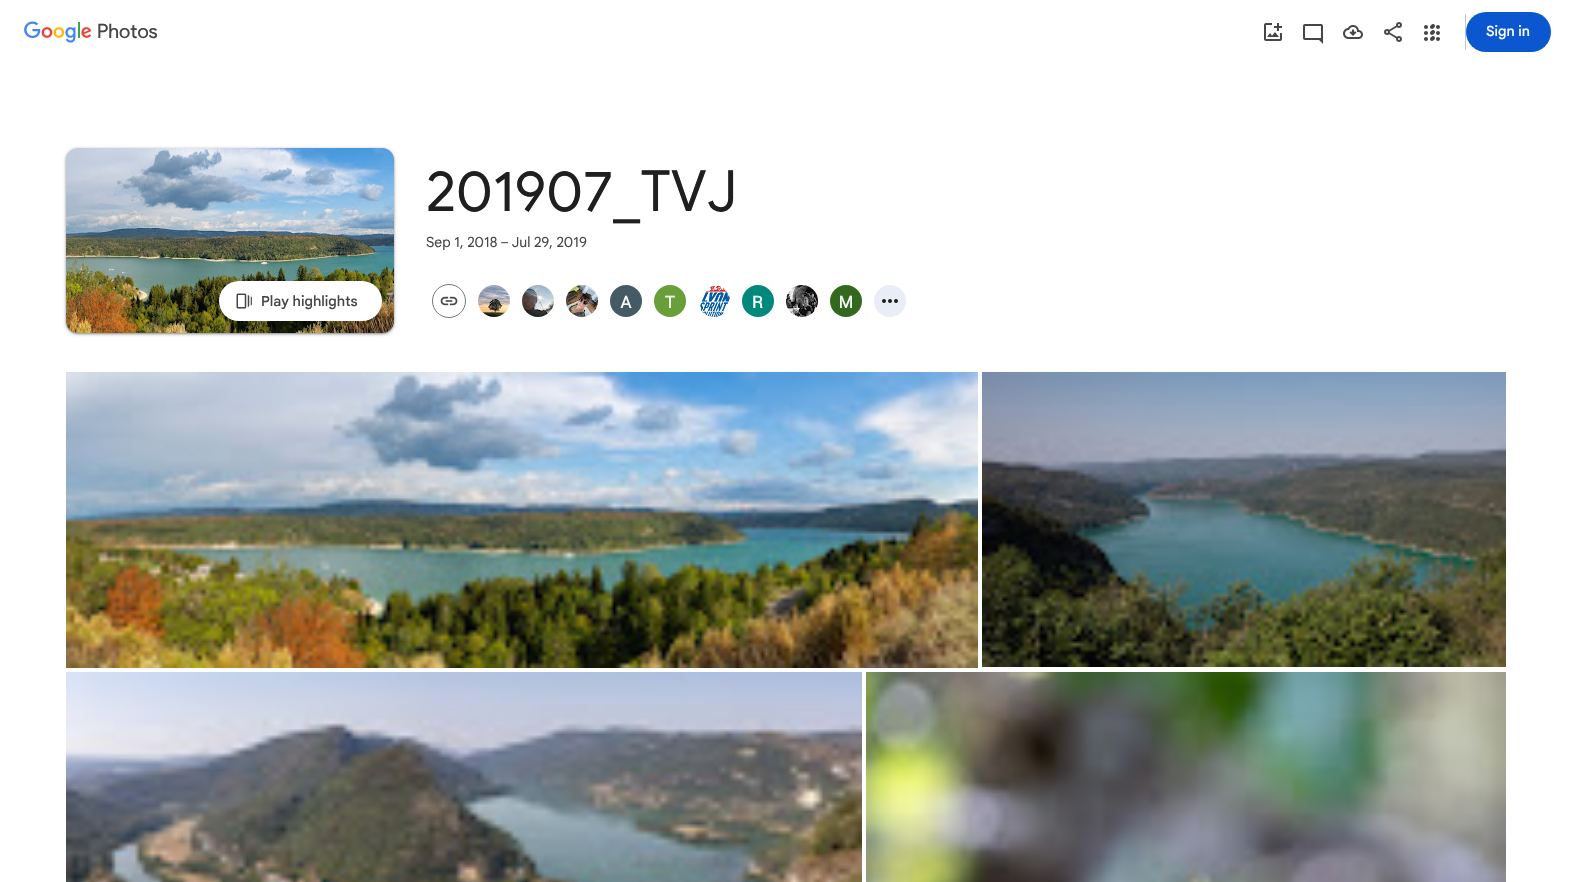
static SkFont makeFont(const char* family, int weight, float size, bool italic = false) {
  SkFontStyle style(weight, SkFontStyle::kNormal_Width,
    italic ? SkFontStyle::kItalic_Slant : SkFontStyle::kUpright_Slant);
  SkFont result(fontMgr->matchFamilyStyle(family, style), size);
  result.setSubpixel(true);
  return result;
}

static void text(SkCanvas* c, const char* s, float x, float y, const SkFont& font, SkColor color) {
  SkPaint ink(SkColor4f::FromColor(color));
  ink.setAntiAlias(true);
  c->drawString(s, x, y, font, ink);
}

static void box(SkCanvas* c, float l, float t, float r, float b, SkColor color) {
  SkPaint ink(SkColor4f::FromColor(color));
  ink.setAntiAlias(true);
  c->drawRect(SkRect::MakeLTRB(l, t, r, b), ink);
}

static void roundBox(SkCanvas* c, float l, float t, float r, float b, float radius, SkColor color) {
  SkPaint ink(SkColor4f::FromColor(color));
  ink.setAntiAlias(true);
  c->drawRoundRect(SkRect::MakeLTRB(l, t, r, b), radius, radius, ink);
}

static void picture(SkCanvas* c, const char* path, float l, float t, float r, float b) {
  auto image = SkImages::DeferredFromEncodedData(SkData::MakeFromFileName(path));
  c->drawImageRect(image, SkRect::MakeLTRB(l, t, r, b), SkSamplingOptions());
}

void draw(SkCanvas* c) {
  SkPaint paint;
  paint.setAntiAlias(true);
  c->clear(0xffffffff);
  picture(c, "img_01.png", 24, 21, 92, 43);
  SkFont face1 = makeFont("Product Sans", 400, 20);
  text(c, "Photos", 97, 38, face1, 0xff444746);
  picture(c, "img_02.png", 1264, 23, 1282, 41);
  picture(c, "img_03.png", 1303, 24, 1323, 44);
  picture(c, "img_04.png", 1343, 25, 1363, 39);
  picture(c, "img_05.png", 1384, 22, 1402, 42);
  picture(c, "img_06.png", 1431, 24, 1435, 40);
  box(c, 1465, 14, 1466, 50, 0xffc4c7c5);
  SkFont face2 = makeFont("Google Sans", 400, 57);
  text(c, "201907_TVJ", 426, 211, face2, 0xff1f1f1f);
  SkFont face3 = makeFont("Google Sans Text", 400, 14);
  text(c, "Sep 1, 2018 – Jul 29, 2019", 426, 247, face3, 0xff444746);
  paint.setStyle(SkPaint::kStroke_Style);
  paint.setStrokeWidth(1);
  paint.setColor(0xff747775);
  c->drawCircle(449, 301, 16.5f, paint);
  picture(c, "img_07.png", 440, 296, 458, 306);
  picture(c, "img_08.png", 478, 285, 510, 317);
  picture(c, "img_09.png", 522, 285, 554, 317);
  picture(c, "img_10.png", 566, 285, 598, 317);
  picture(c, "img_11.png", 610, 285, 642, 317);
  picture(c, "img_12.png", 654, 285, 686, 317);
  picture(c, "img_13.png", 700, 285, 730, 317);
  picture(c, "img_14.png", 742, 285, 774, 317);
  picture(c, "img_15.png", 786, 285, 818, 317);
  picture(c, "img_16.png", 830, 285, 862, 317);
  paint.setStyle(SkPaint::kFill_Style);
  paint.setColor(0xffe9eef6);
  c->drawCircle(890, 301, 16, paint);
  picture(c, "img_17.png", 882, 299, 898, 303);
  paint.setColor(0x26000000);
  paint.setMaskFilter(SkMaskFilter::MakeBlur(kNormal_SkBlurStyle, 1.5f));
  c->drawRoundRect(SkRect::MakeLTRB(65, 148, 395, 335), 13, 13, paint);
  paint.setMaskFilter(nullptr);
  paint.setColor(0x4d000000);
  paint.setMaskFilter(SkMaskFilter::MakeBlur(kNormal_SkBlurStyle, 1));
  c->drawRoundRect(SkRect::MakeLTRB(66, 149, 394, 334), 12, 12, paint);
  paint.setMaskFilter(nullptr);
  picture(c, "img_18.png", 66, 148, 394, 333);
  roundBox(c, 219, 281, 382, 321, 20, 0xffffffff);
  picture(c, "img_19.png", 236, 293, 252, 309);
  SkFont face4 = makeFont("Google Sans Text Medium", 500, 14);
  text(c, "Play highlights", 261, 306, face4, 0xff444746);
  picture(c, "img_20.png", 66, 372, 978, 668);
  picture(c, "img_21.png", 982, 372, 1506, 667);
  picture(c, "img_22.png", 66, 672, 862, 882);
  picture(c, "img_23.png", 866, 672, 1506, 882);
  picture(c, "img_24.png", 1424, 25, 1440, 41);
  roundBox(c, 1466, 12, 1551, 52, 20, 0xff0b57d0);
  text(c, "Sign in", 1486, 36, face4, 0xffffffff);
}
